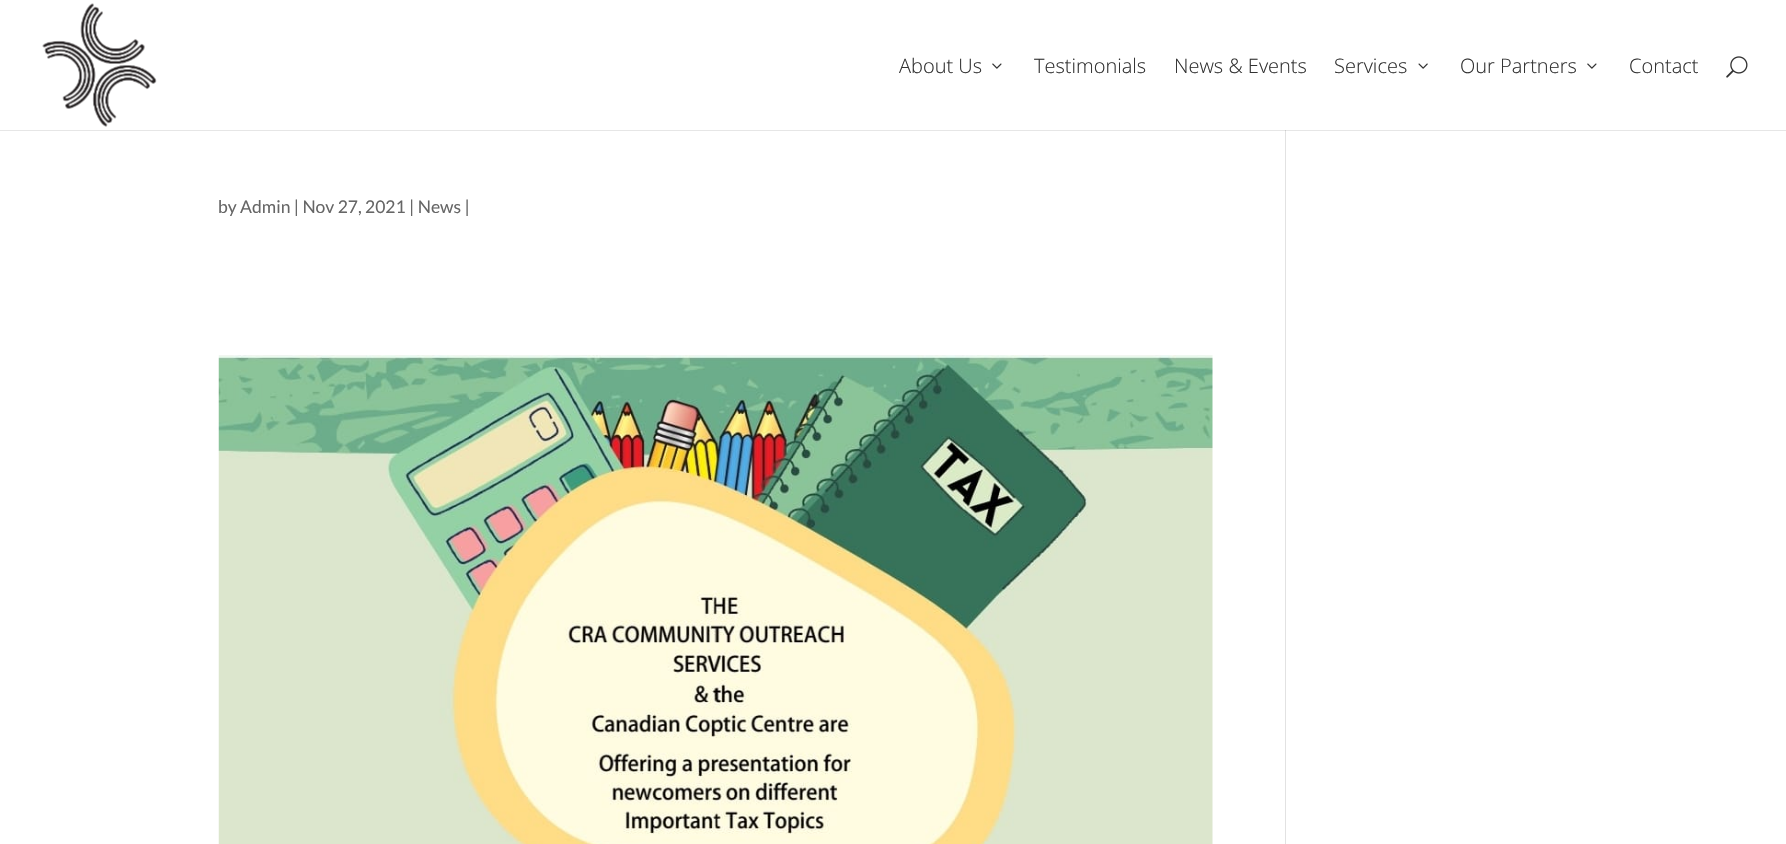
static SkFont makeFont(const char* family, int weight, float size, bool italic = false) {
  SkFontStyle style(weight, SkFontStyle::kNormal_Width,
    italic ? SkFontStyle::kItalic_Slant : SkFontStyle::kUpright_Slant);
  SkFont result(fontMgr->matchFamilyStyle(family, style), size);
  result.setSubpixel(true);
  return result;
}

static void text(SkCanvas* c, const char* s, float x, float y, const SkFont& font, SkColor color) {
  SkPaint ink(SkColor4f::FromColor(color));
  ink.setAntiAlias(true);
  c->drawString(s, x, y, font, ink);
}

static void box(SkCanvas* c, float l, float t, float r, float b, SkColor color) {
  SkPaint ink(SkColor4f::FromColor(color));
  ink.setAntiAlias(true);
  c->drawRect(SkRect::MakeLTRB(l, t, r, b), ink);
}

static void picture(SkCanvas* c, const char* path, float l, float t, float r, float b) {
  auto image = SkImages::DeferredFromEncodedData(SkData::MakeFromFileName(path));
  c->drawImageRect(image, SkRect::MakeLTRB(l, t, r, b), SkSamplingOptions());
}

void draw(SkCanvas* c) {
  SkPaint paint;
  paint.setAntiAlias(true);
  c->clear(0xffffffff);
  box(c, 0, 130, 1786, 131, 0xffe6e6e6);
  picture(c, "img_01.png", 42, 3, 157, 127);
  SkFont face1 = makeFont("Open Sans", 300, 20);
  text(c, "About Us", 899, 73, face1, 0xff333333);
  picture(c, "img_02.png", 992, 63, 1002, 69);
  text(c, "Testimonials", 1034, 73, face1, 0xff333333);
  text(c, "News & Events", 1174, 73, face1, 0xff333333);
  text(c, "Services", 1334, 73, face1, 0xff333333);
  picture(c, "img_03.png", 1418, 63, 1428, 69);
  text(c, "Our Partners", 1460, 73, face1, 0xff333333);
  picture(c, "img_02.png", 1587, 63, 1597, 69);
  text(c, "Contact", 1629, 73, face1, 0xff333333);
  picture(c, "img_04.png", 1726, 56, 1748, 78);
  SkFont face2 = makeFont("Lato", 400, 17.5f);
  text(c, "by Admin | Nov 27, 2021 | News |", 218, 213, face2, 0xff666666);
  picture(c, "img_05.png", 218, 355, 1213, 844);
  box(c, 1285, 131, 1286, 844, 0xffe2e2e2);
  box(c, 1285, 130, 1286, 131, 0xffcbcbcb);
}
